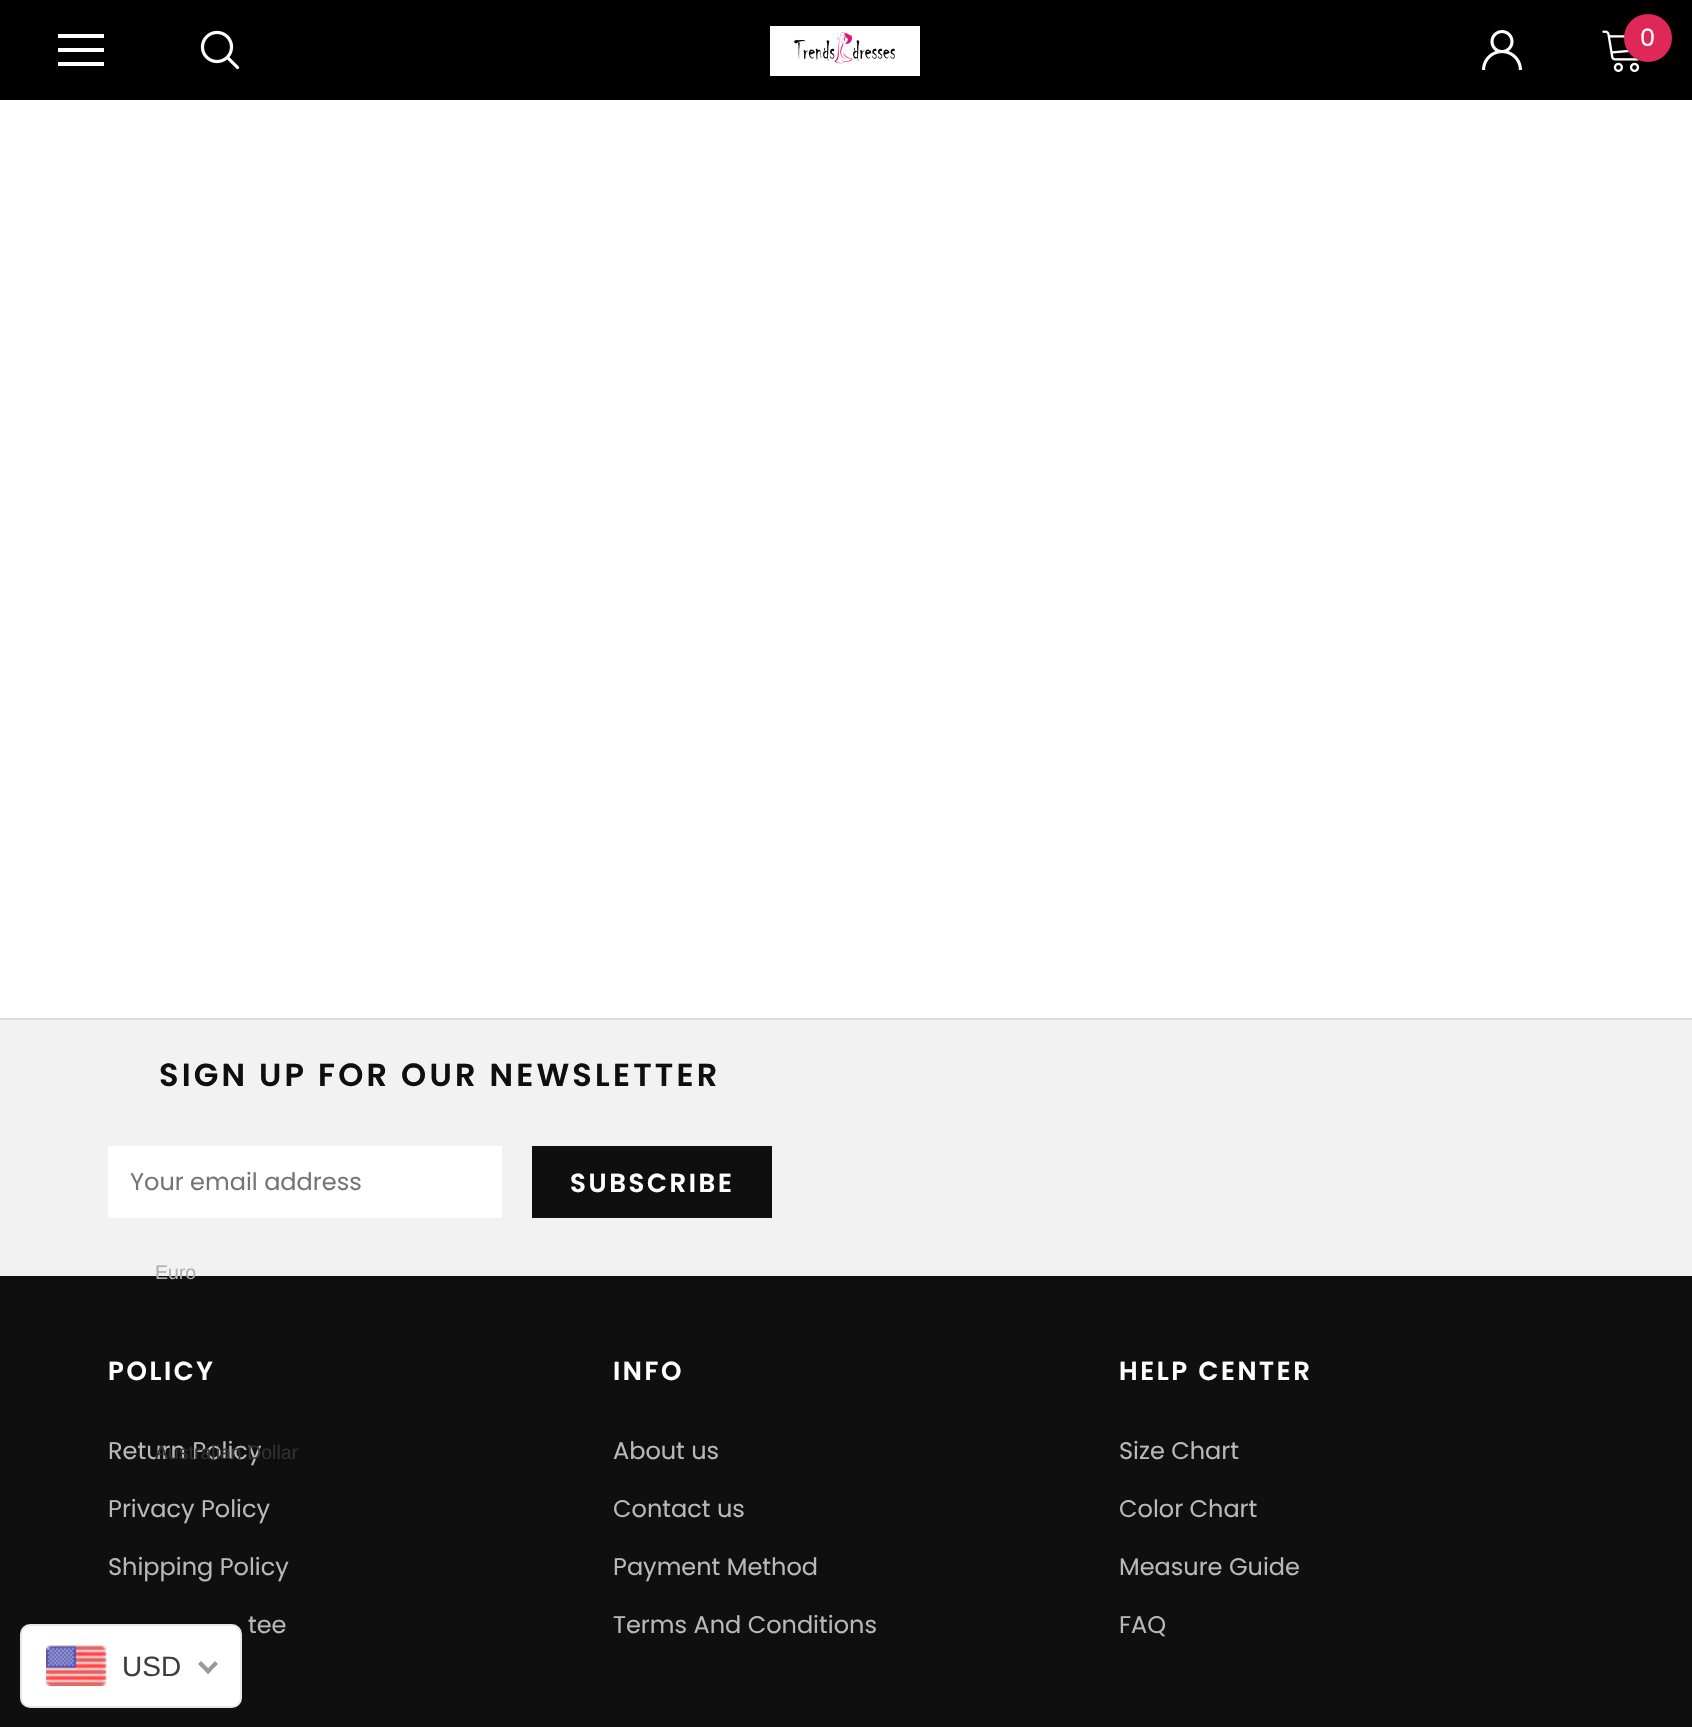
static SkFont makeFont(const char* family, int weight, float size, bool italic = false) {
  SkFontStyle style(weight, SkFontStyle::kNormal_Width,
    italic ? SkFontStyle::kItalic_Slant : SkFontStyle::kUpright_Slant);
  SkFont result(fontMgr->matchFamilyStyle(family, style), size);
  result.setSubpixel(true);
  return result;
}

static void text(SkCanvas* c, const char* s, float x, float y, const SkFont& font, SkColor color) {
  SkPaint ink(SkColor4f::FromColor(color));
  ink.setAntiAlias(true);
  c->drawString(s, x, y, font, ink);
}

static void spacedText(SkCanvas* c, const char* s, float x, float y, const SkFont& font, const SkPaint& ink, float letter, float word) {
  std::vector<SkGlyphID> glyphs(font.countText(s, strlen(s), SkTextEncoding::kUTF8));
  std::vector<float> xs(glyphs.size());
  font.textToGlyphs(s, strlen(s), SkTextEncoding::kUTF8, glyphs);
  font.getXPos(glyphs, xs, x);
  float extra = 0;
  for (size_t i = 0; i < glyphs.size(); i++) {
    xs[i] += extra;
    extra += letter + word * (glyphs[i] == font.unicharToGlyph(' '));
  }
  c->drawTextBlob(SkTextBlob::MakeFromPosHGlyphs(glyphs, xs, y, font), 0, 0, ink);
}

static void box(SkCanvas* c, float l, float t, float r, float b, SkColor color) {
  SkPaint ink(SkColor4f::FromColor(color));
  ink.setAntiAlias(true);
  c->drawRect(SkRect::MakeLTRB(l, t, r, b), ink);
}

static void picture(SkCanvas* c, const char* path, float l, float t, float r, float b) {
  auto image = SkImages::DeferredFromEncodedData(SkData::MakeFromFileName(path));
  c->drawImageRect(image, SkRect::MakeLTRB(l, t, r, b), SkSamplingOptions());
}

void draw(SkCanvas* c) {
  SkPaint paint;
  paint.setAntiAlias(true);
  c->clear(0xffffffff);
  box(c, 0, 0, 1692, 100, 0xff000000);
  box(c, 58, 48, 104, 52, 0xffffffff);
  box(c, 58, 34, 104, 38, 0xffffffff);
  box(c, 58, 62, 104, 66, 0xffffffff);
  picture(c, "img_01.png", 200, 30, 240, 70);
  picture(c, "img_02.png", 770, 26, 920, 76);
  picture(c, "img_03.png", 1482, 30, 1522, 70);
  picture(c, "img_04.png", 1602, 30, 1640, 72);
  paint.setColor(0xffe02858);
  c->drawCircle(1648, 38, 24, paint);
  SkFont face1 = makeFont("Poppins", 400, 24);
  text(c, "0", 1640, 46, face1, 0xffffffff);
  box(c, 0, 1020, 1692, 1276, 0xfff2f2f2);
  box(c, 0, 1018, 1692, 1020, 0xffdddddd);
  SkFont face2 = makeFont("Poppins", 600, 32);
  paint.setColor(0xff0f0f0f);
  spacedText(c, "SIGN UP FOR OUR NEWSLETTER", 159, 1086, face2, paint, 3.2f, 0);
  box(c, 108, 1146, 502, 1218, 0xffffffff);
  text(c, "Your email address", 130, 1190, face1, 0xff757575);
  box(c, 532, 1146, 772, 1218, 0xff0f0f0f);
  SkFont face3 = makeFont("Poppins", 600, 26);
  paint.setColor(0xffffffff);
  spacedText(c, "SUBSCRIBE", 570, 1192, face3, paint, 2.6f, 0);
  box(c, 0, 1276, 1692, 1727, 0xff0f0f0f);
  spacedText(c, "POLICY", 108, 1380, face3, paint, 2.6f, 0);
  text(c, "Return Policy", 108, 1459, face1, 0xffb8b8b8);
  text(c, "Privacy Policy", 108, 1517, face1, 0xffb8b8b8);
  text(c, "Shipping Policy", 108, 1575, face1, 0xffb8b8b8);
  text(c, "tee", 248, 1633, face1, 0xffb8b8b8);
  spacedText(c, "INFO", 613, 1380, face3, paint, 2.6f, 0);
  text(c, "About us", 613, 1459, face1, 0xffb8b8b8);
  text(c, "Contact us", 613, 1517, face1, 0xffb8b8b8);
  text(c, "Payment Method", 613, 1575, face1, 0xffb8b8b8);
  text(c, "Terms And Conditions", 613, 1633, face1, 0xffb8b8b8);
  spacedText(c, "HELP CENTER", 1119, 1380, face3, paint, 2.6f, 0);
  text(c, "Size Chart", 1119, 1459, face1, 0xffb8b8b8);
  text(c, "Color Chart", 1119, 1517, face1, 0xffb8b8b8);
  text(c, "Measure Guide", 1119, 1575, face1, 0xffb8b8b8);
  text(c, "FAQ", 1119, 1633, face1, 0xffb8b8b8);
  c->drawRoundRect(SkRect::MakeLTRB(21, 1625, 241, 1707), 9, 9, paint);
  paint.setStyle(SkPaint::kStroke_Style);
  paint.setStrokeWidth(2);
  paint.setColor(0xffe8e8e8);
  c->drawRoundRect(SkRect::MakeLTRB(21, 1625, 241, 1707), 9, 9, paint);
  SkFont face4 = makeFont("Liberation Sans", 400, 19.5f);
  text(c, "Euro", 155, 1279, face4, 0xffafafaf);
  text(c, "Australian Dollar", 155, 1459, face4, 0xff303030);
  picture(c, "img_05.png", 46, 1645, 107, 1686);
  SkFont face5 = makeFont("Liberation Sans", 400, 28);
  text(c, "USD", 122, 1676, face5, 0xff403f3f);
  paint.setStyle(SkPaint::kFill_Style);
  paint.setColor(0xff999999);
  c->drawPath(SkPathBuilder().moveTo(215, 1661).lineTo(218, 1664).lineTo(208, 1674).lineTo(205.5f, 1671).close().detach(), paint);
  c->drawPath(SkPathBuilder().moveTo(201, 1661).lineTo(211, 1671).lineTo(208, 1674).lineTo(198, 1664).close().detach(), paint);
}
